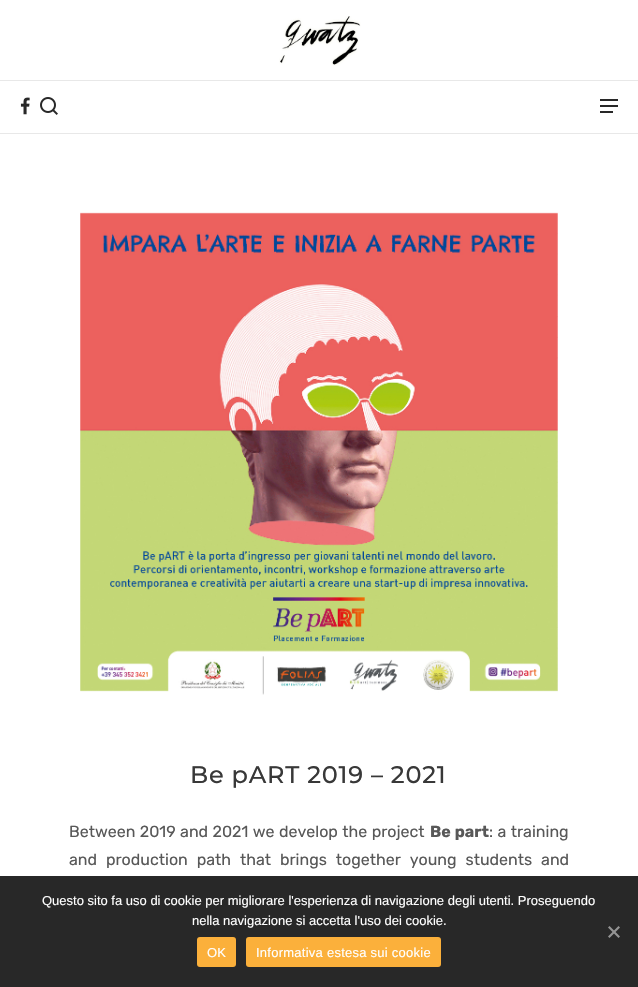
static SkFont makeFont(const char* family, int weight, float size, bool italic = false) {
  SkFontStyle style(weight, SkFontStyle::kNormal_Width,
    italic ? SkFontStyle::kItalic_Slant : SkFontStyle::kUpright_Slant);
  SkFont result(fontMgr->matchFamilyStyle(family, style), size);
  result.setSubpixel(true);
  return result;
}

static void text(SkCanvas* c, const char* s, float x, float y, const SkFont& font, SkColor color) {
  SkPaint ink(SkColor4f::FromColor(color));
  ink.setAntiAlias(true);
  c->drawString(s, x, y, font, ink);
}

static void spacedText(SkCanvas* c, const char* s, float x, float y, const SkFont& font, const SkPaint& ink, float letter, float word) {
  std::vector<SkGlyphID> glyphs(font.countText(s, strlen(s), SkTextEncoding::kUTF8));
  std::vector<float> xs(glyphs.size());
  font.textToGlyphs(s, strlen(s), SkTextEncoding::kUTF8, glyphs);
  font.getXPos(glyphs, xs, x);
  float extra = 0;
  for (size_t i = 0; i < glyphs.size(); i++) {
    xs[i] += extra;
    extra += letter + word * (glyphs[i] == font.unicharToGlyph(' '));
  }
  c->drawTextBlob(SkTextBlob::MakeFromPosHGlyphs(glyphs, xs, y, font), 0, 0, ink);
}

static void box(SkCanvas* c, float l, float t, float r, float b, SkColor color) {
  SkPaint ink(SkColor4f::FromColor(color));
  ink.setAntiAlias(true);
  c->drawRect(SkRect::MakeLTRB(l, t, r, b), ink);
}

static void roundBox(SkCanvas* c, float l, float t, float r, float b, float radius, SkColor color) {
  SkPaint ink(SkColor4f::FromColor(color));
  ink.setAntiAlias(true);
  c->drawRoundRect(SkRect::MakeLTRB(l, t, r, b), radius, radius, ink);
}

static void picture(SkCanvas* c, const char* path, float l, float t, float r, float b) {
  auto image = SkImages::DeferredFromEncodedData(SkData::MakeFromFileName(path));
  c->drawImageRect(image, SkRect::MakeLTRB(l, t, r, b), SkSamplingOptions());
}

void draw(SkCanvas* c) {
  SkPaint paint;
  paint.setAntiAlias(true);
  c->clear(0xffffffff);
  picture(c, "img_01.png", 279, 16, 361, 66);
  box(c, 0, 80, 638, 81, 0xffe8e8e8);
  box(c, 0, 133, 638, 134, 0xffe8e8e8);
  picture(c, "img_02.png", 20, 97, 30, 115);
  picture(c, "img_03.png", 40, 97, 58, 115);
  box(c, 600, 105, 618, 107, 0xff282828);
  box(c, 600, 99, 618, 101, 0xff282828);
  box(c, 600, 111, 613, 113, 0xff282828);
  picture(c, "img_04.png", 80, 212, 558, 695);
  SkFont face1 = makeFont("Montserrat", 500, 24);
  paint.setColor(0xff383838);
  spacedText(c, "Be pART 2019 – 2021", 190, 783, face1, paint, 0.75f, 0);
  SkFont face2 = makeFont("Rubik", 400, 16);
  paint.setColor(0xff585858);
  spacedText(c, "Between 2019 and 2021 we develop the project", 69, 837, face2, paint, 0, 0.5f);
  SkFont face3 = makeFont("Rubik", 700, 16);
  spacedText(c, "Be part", 430, 837, face3, paint, 0, 0.5f);
  spacedText(c, ": a training", 489, 837, face2, paint, 0, 0.5f);
  spacedText(c, "and production path that brings together young students and", 69, 865, face2, paint, 0, 5);
  box(c, 0, 876, 638, 987, 0xff282828);
  SkFont face4 = makeFont("Liberation Sans", 400, 13);
  text(c, "Questo sito fa uso di cookie per migliorare l'esperienza di navigazione degli utenti. Proseguendo", 42, 905, face4, 0xffffffff);
  text(c, "nella navigazione si accetta l'uso dei cookie.", 192, 925, face4, 0xffffffff);
  paint.setColor(0xff949494);
  c->drawPath(SkPathBuilder().moveTo(618.5f, 926).lineTo(620, 927.5f).lineTo(609.5f, 938).lineTo(608, 936.5f).close().detach(), paint);
  c->drawPath(SkPathBuilder().moveTo(608, 927.5f).lineTo(609.5f, 926).lineTo(620, 936.5f).lineTo(618.5f, 938).close().detach(), paint);
  roundBox(c, 197, 937, 236, 967, 3, 0xfffbb03b);
  paint.setColor(0xffffffff);
  spacedText(c, "OK", 207, 957, face4, paint, 0.25f, 0);
  roundBox(c, 246, 937, 441, 967, 3, 0xfffbb03b);
  spacedText(c, "Informativa estesa sui cookie", 256, 957, face4, paint, 0.25f, 0);
}
